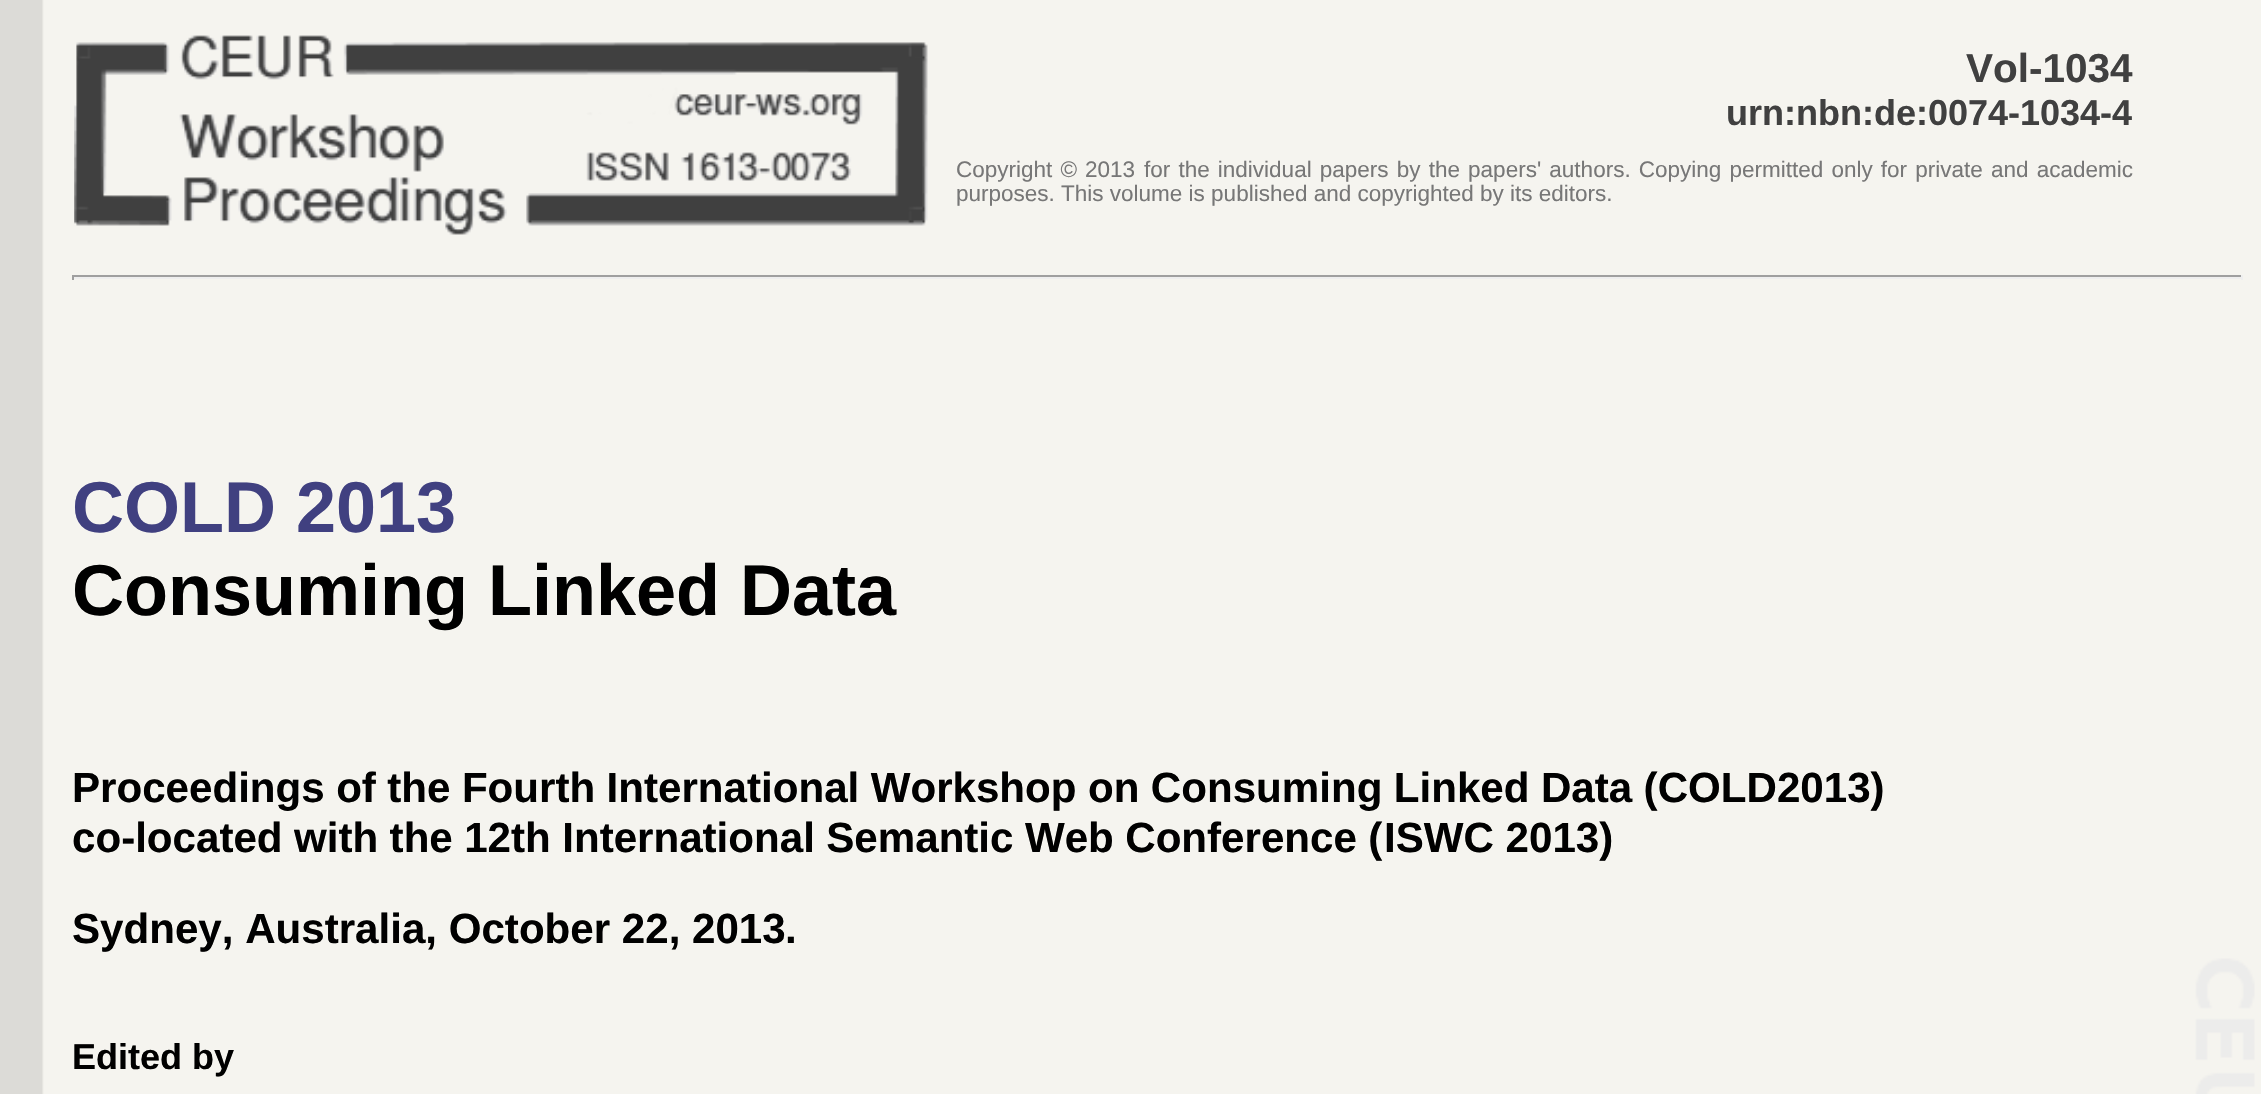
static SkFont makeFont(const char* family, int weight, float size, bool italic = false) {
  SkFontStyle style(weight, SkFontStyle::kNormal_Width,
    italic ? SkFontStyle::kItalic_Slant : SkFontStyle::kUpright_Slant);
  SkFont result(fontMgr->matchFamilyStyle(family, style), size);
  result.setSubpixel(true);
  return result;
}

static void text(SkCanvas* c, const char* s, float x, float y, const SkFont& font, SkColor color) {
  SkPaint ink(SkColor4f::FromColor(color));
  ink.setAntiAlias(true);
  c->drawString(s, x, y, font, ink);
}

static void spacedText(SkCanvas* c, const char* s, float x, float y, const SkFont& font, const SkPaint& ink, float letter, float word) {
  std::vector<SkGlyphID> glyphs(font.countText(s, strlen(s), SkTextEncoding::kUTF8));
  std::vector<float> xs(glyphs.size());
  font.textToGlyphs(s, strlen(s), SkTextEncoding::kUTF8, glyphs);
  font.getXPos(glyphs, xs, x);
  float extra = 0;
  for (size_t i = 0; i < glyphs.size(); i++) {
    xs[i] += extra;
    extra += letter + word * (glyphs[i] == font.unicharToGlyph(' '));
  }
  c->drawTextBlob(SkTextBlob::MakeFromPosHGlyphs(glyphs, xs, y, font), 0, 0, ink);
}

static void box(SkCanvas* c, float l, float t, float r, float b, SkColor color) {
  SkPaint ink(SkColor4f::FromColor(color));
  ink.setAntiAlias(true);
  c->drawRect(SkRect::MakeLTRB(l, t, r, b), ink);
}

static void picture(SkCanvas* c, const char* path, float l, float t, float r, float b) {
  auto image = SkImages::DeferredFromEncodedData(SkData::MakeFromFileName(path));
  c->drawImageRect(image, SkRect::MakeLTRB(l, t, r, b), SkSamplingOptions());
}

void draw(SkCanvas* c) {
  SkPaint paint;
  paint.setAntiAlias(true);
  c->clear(0xffffffff);
  picture(c, "img_01.png", 0, 0, 2261, 1094);
  picture(c, "img_02.png", 74, 35, 928, 235);
  SkFont face1 = makeFont("Liberation Sans", 700, 40.5f);
  text(c, "Vol-1034", 1966, 82, face1, 0xff404040);
  SkFont face2 = makeFont("Liberation Sans", 700, 36);
  text(c, "urn:nbn:de:0074-1034-4", 1726, 125, face2, 0xff404040);
  SkFont face3 = makeFont("Liberation Sans", 400, 22.5f);
  paint.setColor(0xff777777);
  spacedText(c, "Copyright ©", 956, 177, face3, paint, 0, 1.9f);
  text(c, "2013", 1085, 177, face3, 0xff777777);
  spacedText(c, "for the individual papers by the papers' authors. Copying permitted only for private and academic", 1144, 177, face3, paint, 0, 1.9f);
  text(c, "purposes. This volume is published and copyrighted by its editors.", 956, 201, face3, 0xff777777);
  box(c, 72, 275, 2243, 277, 0xff9f9f9f);
  box(c, 2241, 275, 2243, 280, 0xffeeeeee);
  box(c, 72, 277, 2243, 279, 0xffeeeeee);
  box(c, 72, 275, 74, 280, 0xff9f9f9f);
  SkFont face4 = makeFont("Liberation Sans", 700, 72);
  text(c, "COLD 2013", 72, 532, face4, 0xff404080);
  text(c, "Consuming Linked Data", 72, 615, face4, 0xff000000);
  SkFont face5 = makeFont("Liberation Sans", 700, 42.1f);
  paint.setColor(0xff000000);
  spacedText(c, "Proceedings of the Fourth International Workshop on Consuming Linked Data (COLD2013)", 72, 802, face5, paint, 0, -0.25f);
  spacedText(c, "co-located with the 12th International Semantic Web Conference (", 72, 852, face5, paint, 0, -0.25f);
  text(c, "ISWC 2013)", 1384, 852, face5, 0xff000000);
  text(c, "Sydney, Australia, October 22, 2013", 72, 943, face5, 0xff000000);
  text(c, ".", 785, 943, face5, 0xff000000);
  text(c, "Edited by", 72, 1069, face2, 0xff000000);
}
